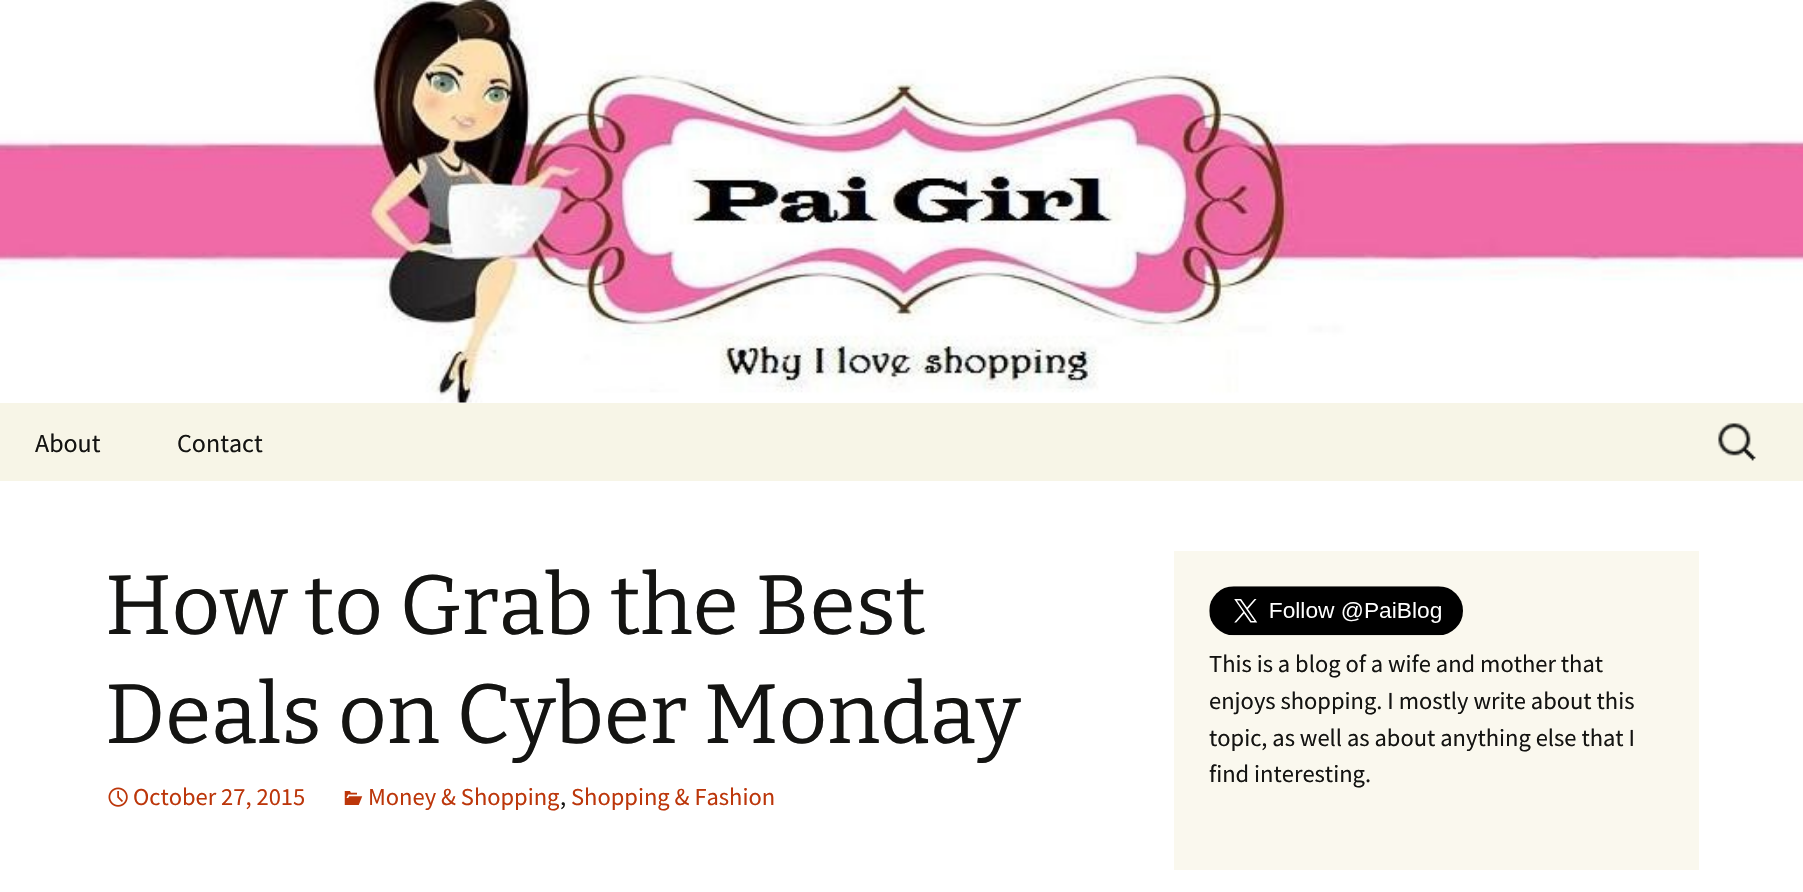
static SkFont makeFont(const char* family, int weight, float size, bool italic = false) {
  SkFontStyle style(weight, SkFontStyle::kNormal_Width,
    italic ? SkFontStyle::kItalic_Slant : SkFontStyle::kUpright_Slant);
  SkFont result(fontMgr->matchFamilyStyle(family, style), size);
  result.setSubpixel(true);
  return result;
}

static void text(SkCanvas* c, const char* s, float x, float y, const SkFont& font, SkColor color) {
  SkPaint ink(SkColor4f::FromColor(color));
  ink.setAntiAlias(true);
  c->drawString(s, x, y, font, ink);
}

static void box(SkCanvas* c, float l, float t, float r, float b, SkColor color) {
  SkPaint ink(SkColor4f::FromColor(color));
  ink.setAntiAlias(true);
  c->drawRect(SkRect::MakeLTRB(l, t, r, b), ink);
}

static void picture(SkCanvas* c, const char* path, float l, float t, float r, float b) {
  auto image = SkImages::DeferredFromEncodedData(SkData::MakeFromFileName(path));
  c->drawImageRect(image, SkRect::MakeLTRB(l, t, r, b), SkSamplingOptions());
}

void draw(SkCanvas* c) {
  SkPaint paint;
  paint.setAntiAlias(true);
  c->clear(0xffffffff);
  picture(c, "img_01.png", 0, 0, 1803, 403);
  box(c, 0, 403, 1803, 481, 0xfff7f5e7);
  SkFont face1 = makeFont("Source Sans Pro", 400, 26);
  text(c, "About", 35, 452, face1, 0xff141412);
  text(c, "Contact", 177, 452, face1, 0xff141412);
  picture(c, "img_02.png", 1718, 423, 1756, 461);
  SkFont face2 = makeFont("Bitter", 400, 84);
  text(c, "How to Grab the Best", 105, 634, face2, 0xff141412);
  text(c, "Deals on Cyber Monday", 105, 743, face2, 0xff141412);
  picture(c, "img_03.png", 108, 787, 128, 807);
  SkFont face3 = makeFont("Source Sans Pro", 400, 24.5f);
  text(c, "October 27, 2015", 133, 805, face3, 0xffbc360a);
  picture(c, "img_04.png", 344, 791, 363, 805);
  text(c, "Money & Shopping", 368, 805, face3, 0xffbc360a);
  text(c, ",", 560, 805, face3, 0xff141412);
  text(c, "Shopping & Fashion", 571, 805, face3, 0xffbc360a);
  box(c, 1174, 551, 1699, 870, 0xfffaf8ee);
  picture(c, "img_05.png", 1209, 586, 1463, 636);
  text(c, "This is a blog of a wife and mother that", 1209, 672, face3, 0xff141412);
  text(c, "enjoys shopping. I mostly write about this", 1209, 709, face3, 0xff141412);
  text(c, "topic, as well as about anything else that I", 1209, 746, face3, 0xff141412);
  text(c, "find interesting.", 1209, 782, face3, 0xff141412);
}
